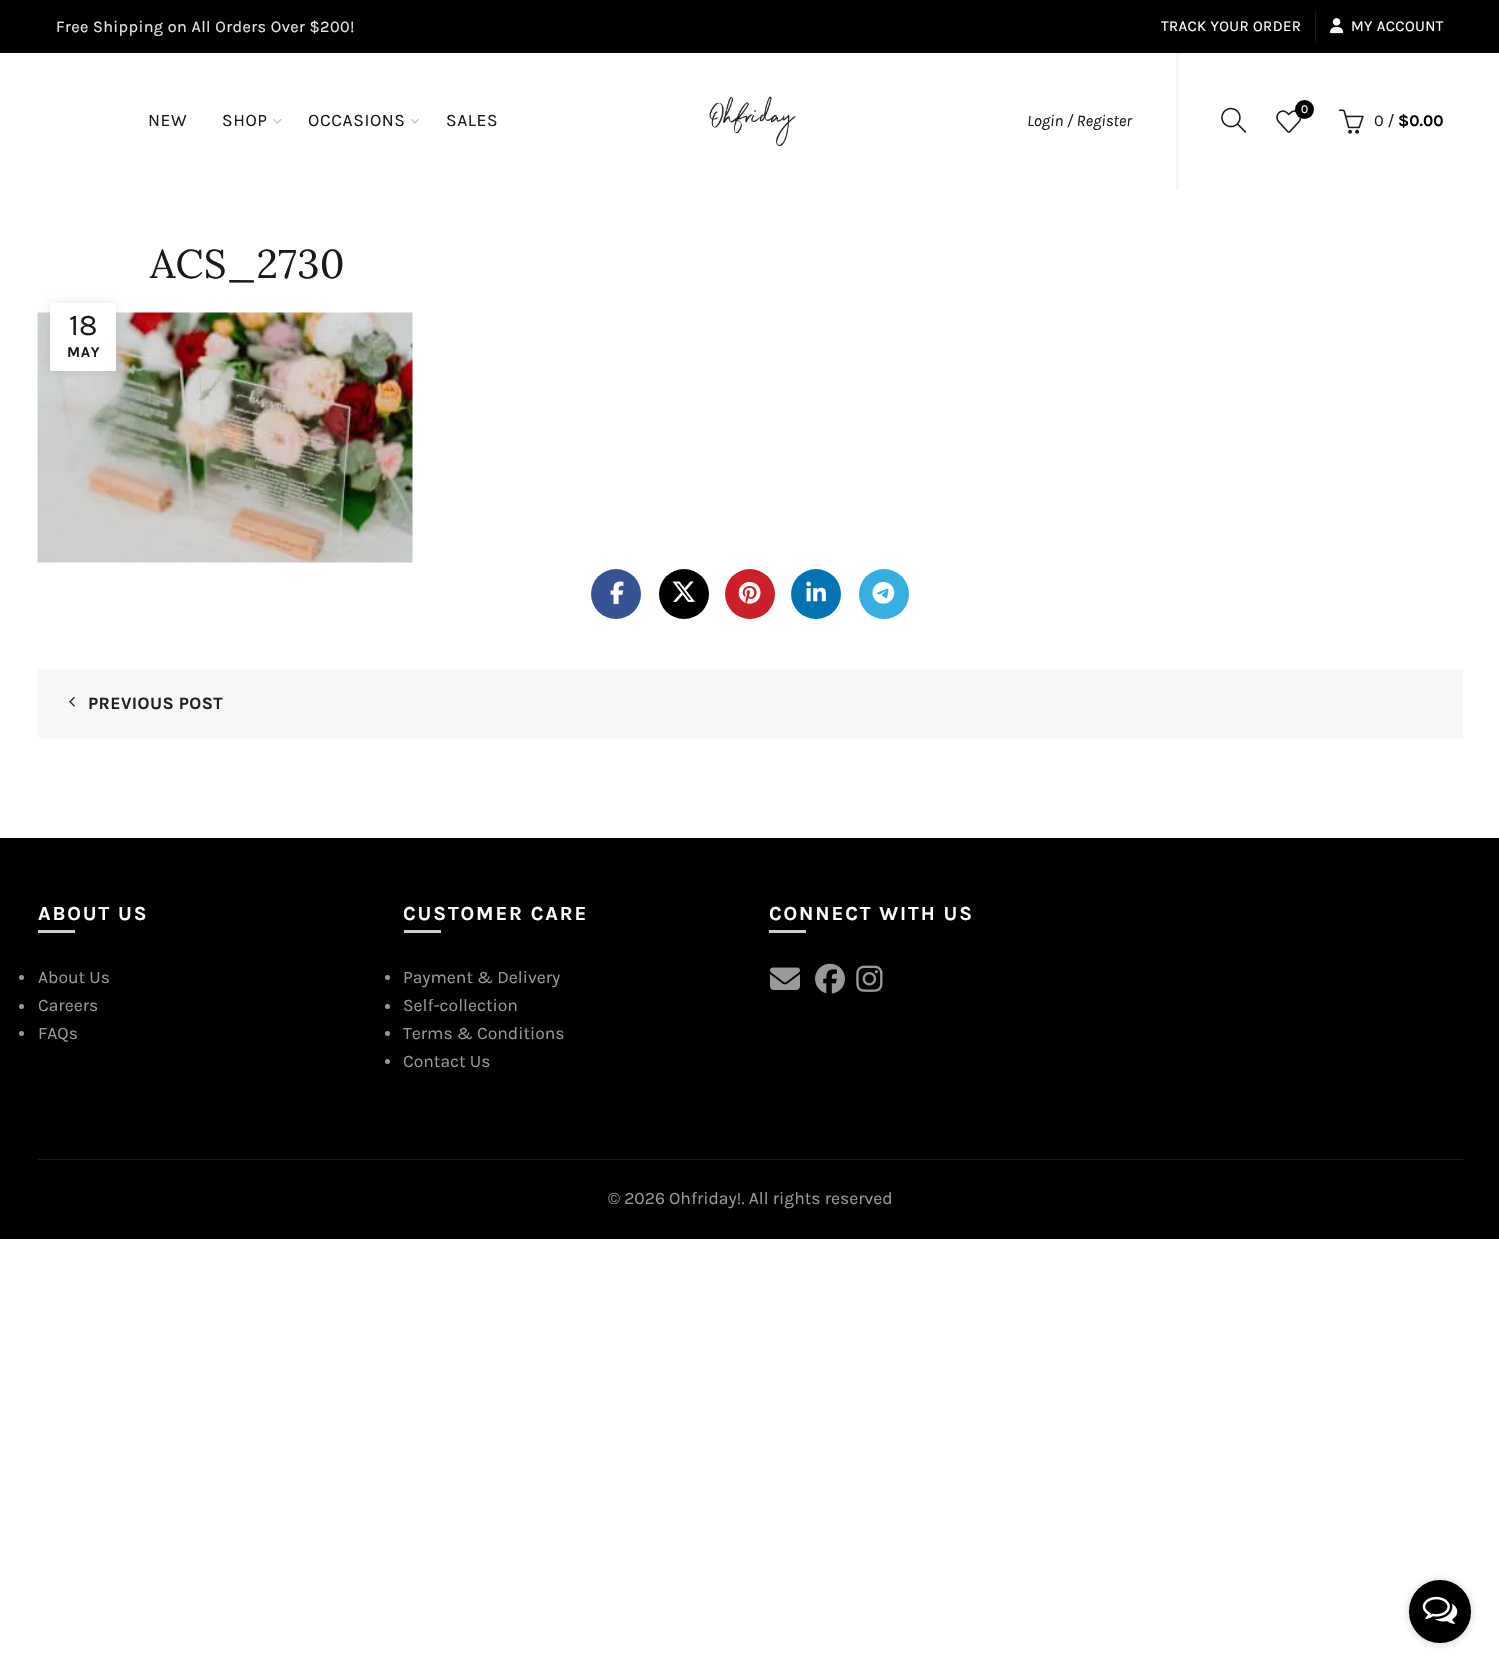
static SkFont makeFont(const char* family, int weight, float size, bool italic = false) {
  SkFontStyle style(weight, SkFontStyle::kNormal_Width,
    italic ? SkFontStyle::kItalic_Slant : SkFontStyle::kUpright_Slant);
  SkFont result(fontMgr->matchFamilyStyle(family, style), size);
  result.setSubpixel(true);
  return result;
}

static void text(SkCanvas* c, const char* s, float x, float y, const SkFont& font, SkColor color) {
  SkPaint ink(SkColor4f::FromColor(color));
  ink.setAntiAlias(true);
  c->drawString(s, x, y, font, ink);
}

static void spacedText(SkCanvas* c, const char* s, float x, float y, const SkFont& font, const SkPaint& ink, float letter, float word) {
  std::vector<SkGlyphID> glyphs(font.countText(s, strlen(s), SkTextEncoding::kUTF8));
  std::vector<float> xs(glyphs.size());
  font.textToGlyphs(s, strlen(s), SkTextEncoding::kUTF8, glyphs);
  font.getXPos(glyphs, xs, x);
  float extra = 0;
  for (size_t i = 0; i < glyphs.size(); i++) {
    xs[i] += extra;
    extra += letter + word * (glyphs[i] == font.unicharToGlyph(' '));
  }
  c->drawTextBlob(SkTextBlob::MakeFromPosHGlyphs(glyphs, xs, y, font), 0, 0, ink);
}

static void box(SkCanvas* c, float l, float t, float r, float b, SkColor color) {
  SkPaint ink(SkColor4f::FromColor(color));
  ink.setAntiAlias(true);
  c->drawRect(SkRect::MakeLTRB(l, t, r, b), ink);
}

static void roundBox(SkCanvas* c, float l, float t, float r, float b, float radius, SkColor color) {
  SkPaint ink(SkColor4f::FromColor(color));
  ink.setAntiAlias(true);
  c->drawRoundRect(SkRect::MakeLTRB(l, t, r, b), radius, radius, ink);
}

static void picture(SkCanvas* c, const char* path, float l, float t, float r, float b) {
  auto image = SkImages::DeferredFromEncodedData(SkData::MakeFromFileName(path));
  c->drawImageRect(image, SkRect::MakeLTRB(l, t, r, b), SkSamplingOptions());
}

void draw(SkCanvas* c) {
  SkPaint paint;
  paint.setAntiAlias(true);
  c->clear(0xffffffff);
  box(c, 0, 0, 1499, 53, 0xff000000);
  SkFont face1 = makeFont("Karla", 400, 16.25f);
  paint.setColor(0xffe6e6e6);
  spacedText(c, "Free Shipping on All Orders Over $200!", 56, 32, face1, paint, 0.4f, 0);
  SkFont face2 = makeFont("Karla", 400, 15);
  paint.setColor(0xffffffff);
  spacedText(c, "TRACK YOUR ORDER", 1161, 31, face2, paint, 0.4f, 0);
  box(c, 1315, 11, 1316, 43, 0xff1a1a1a);
  picture(c, "img_01.png", 1330, 18, 1344, 34);
  spacedText(c, "MY ACCOUNT", 1351, 31, face2, paint, 0.4f, 0);
  SkFont face3 = makeFont("Karla", 400, 17.5f);
  paint.setColor(0xff1b1919);
  spacedText(c, "NEW", 148, 126, face3, paint, 0.6f, 0);
  spacedText(c, "SHOP", 222, 126, face3, paint, 0.6f, 0);
  picture(c, "img_02.png", 273, 119, 282, 124);
  spacedText(c, "OCCASIONS", 308, 126, face3, paint, 0.6f, 0);
  picture(c, "img_03.png", 410, 119, 419, 124);
  spacedText(c, "SALES", 446, 126, face3, paint, 0.6f, 0);
  picture(c, "img_04.png", 709, 96, 796, 147);
  box(c, 1176, 53, 1179, 190, 0xfff5f5f5);
  SkFont face4 = makeFont("Karla", 400, 16.25f, true);
  text(c, "Login / Register", 1027, 126, face4, 0xff1b1919);
  picture(c, "img_05.png", 1221, 107, 1247, 133);
  picture(c, "img_06.png", 1276, 110, 1302, 133);
  paint.setColor(0xff000000);
  c->drawCircle(1304.5f, 109.5f, 9.5f, paint);
  SkFont face5 = makeFont("Karla", 400, 12);
  text(c, "0", 1301, 113, face5, 0xffffffff);
  picture(c, "img_07.png", 1338, 109, 1364, 134);
  text(c, "0 /", 1374, 126, face1, 0xff1b1919);
  SkFont face6 = makeFont("Karla", 700, 16.25f);
  text(c, "$0.00", 1398, 126, face6, 0xff000000);
  SkFont face7 = makeFont("Lora", 400, 40);
  paint.setColor(0xff1b1919);
  spacedText(c, "ACS_2730", 150, 278, face7, paint, 0.4f, 0);
  picture(c, "img_08.png", 37, 312, 413, 563);
  paint.setColor(0x1a000000);
  paint.setMaskFilter(SkMaskFilter::MakeBlur(kNormal_SkBlurStyle, 5.5f));
  c->drawRect(SkRect::MakeLTRB(50, 303, 116, 371), paint);
  paint.setMaskFilter(nullptr);
  box(c, 50, 303, 116, 371, 0xffffffff);
  SkFont face8 = makeFont("Karla", 400, 30);
  text(c, "18", 69, 335, face8, 0xff1b1919);
  SkFont face9 = makeFont("Karla", 700, 15);
  paint.setColor(0xff1b1919);
  spacedText(c, "MAY", 67, 357, face9, paint, 0.6f, 0);
  paint.setColor(0xff365493);
  c->drawCircle(616, 594, 25, paint);
  picture(c, "img_09.png", 610, 581, 624, 605);
  paint.setColor(0xff000000);
  c->drawCircle(684, 594, 25, paint);
  picture(c, "img_10.png", 672, 581, 695, 602);
  paint.setColor(0xffcb2027);
  c->drawCircle(750, 594, 25, paint);
  picture(c, "img_11.png", 738, 581, 761, 604);
  paint.setColor(0xff0274b3);
  c->drawCircle(816, 594, 25, paint);
  picture(c, "img_12.png", 806, 581, 826, 602);
  paint.setColor(0xff37aee2);
  c->drawCircle(884, 594, 25, paint);
  picture(c, "img_13.png", 872, 581, 895, 604);
  box(c, 38, 669, 1463, 738, 0xfff7f7f7);
  picture(c, "img_14.png", 69, 696, 75, 707);
  SkFont face10 = makeFont("Karla", 700, 17.5f);
  paint.setColor(0xff202020);
  spacedText(c, "PREVIOUS POST", 88, 709, face10, paint, 0.4f, 0);
  box(c, 0, 838, 1499, 1239, 0xff000000);
  SkFont face11 = makeFont("Karla", 700, 20);
  paint.setColor(0xffffffff);
  spacedText(c, "ABOUT US", 38, 920, face11, paint, 1.9f, 0);
  box(c, 38, 930, 75, 933, 0xffcccccc);
  paint.setColor(0xff999999);
  c->drawCircle(21.5f, 977.5f, 2.5f, paint);
  text(c, "About Us", 38, 983, face3, 0xff999999);
  c->drawCircle(21.5f, 1006.5f, 2.5f, paint);
  text(c, "Careers", 38, 1011, face3, 0xff999999);
  c->drawCircle(21.5f, 1033.5f, 2.5f, paint);
  text(c, "FAQs", 38, 1039, face3, 0xff999999);
  paint.setColor(0xffffffff);
  spacedText(c, "CUSTOMER CARE", 403, 920, face11, paint, 1.9f, 0);
  box(c, 404, 930, 441, 933, 0xffcccccc);
  paint.setColor(0xff999999);
  c->drawCircle(387.5f, 977.5f, 2.5f, paint);
  text(c, "Payment & Delivery", 403, 983, face3, 0xff999999);
  c->drawCircle(387.5f, 1006.5f, 2.5f, paint);
  text(c, "Self-collection", 403, 1011, face3, 0xff999999);
  c->drawCircle(387.5f, 1033.5f, 2.5f, paint);
  text(c, "Terms & Conditions", 403, 1039, face3, 0xff999999);
  c->drawCircle(387.5f, 1061.5f, 2.5f, paint);
  text(c, "Contact Us", 403, 1067, face3, 0xff999999);
  paint.setColor(0xffffffff);
  spacedText(c, "CONNECT WITH US", 769, 920, face11, paint, 1.9f, 0);
  box(c, 769, 930, 806, 933, 0xffcccccc);
  picture(c, "img_15.png", 770, 967, 800, 990);
  picture(c, "img_16.png", 815, 963, 845, 994);
  picture(c, "img_17.png", 856, 965, 883, 992);
  box(c, 38, 1159, 1463, 1160, 0xff1a1a1a);
  text(c, "© 2026 Ohfriday!. All rights reserved", 608, 1204, face3, 0xff999999);
  paint.setColor(0x66888888);
  paint.setMaskFilter(SkMaskFilter::MakeBlur(kNormal_SkBlurStyle, 4.5f));
  c->drawRoundRect(SkRect::MakeLTRB(1409, 1581, 1471, 1644), 31, 31, paint);
  paint.setMaskFilter(nullptr);
  roundBox(c, 1409, 1580, 1471, 1643, 31, 0xff000000);
  picture(c, "img_18.png", 1422, 1596, 1458, 1624);
}
